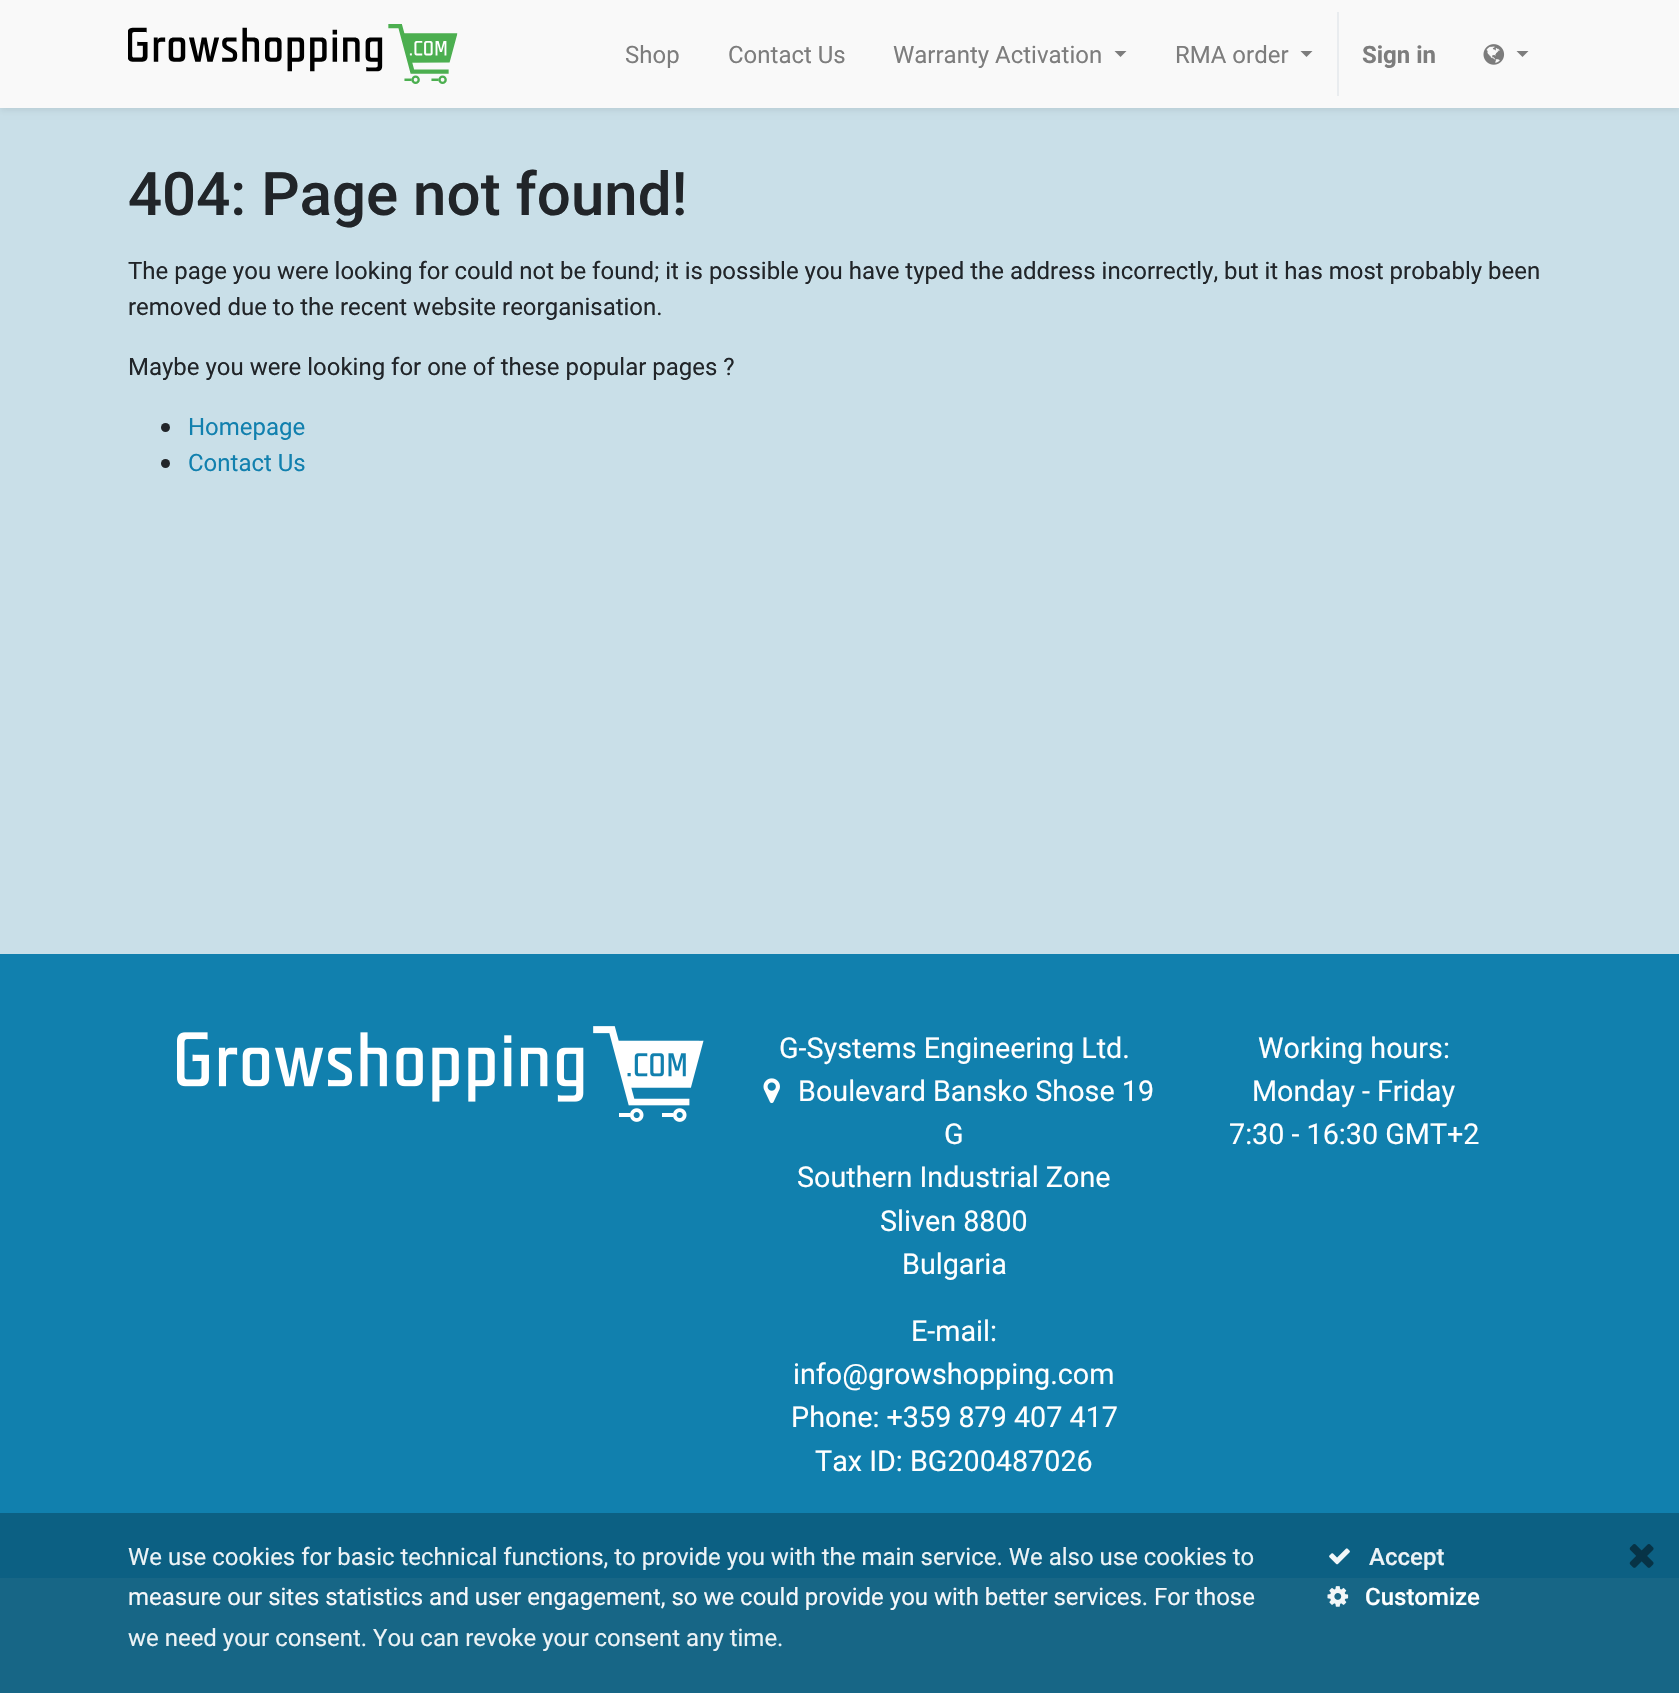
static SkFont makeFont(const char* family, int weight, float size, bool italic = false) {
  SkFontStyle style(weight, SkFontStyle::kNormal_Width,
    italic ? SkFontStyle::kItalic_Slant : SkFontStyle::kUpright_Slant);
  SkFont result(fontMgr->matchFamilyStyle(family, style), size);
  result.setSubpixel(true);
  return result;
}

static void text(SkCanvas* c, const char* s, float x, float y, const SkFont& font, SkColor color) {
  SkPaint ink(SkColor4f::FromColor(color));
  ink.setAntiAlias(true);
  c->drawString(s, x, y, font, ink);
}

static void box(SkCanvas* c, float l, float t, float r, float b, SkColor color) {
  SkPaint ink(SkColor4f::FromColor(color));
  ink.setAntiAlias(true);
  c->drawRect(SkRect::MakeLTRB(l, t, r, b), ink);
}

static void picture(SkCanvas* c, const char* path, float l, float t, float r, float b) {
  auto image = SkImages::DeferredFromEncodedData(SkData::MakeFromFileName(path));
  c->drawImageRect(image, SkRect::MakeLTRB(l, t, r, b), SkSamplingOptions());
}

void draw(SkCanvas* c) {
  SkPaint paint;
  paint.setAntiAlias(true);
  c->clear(0xffc9dfe8);
  box(c, 0, 1578, 1679, 1693, 0xff176686);
  paint.setColor(0x12000000);
  paint.setMaskFilter(SkMaskFilter::MakeBlur(kNormal_SkBlurStyle, 3));
  c->drawRect(SkRect::MakeLTRB(0, 3, 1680, 111), paint);
  paint.setMaskFilter(nullptr);
  box(c, 0, 0, 1679, 108, 0xfff9f9f9);
  picture(c, "img_01.png", 128, 24, 458, 84);
  SkFont face1 = makeFont("Roboto", 400, 24);
  text(c, "Shop", 625, 63, face1, 0xff7d7d7d);
  text(c, "Contact Us", 728, 63, face1, 0xff7d7d7d);
  text(c, "Warranty Activation", 893, 63, face1, 0xff7d7d7d);
  paint.setColor(0xff7d7d7d);
  c->drawPath(SkPathBuilder().moveTo(1114.5f, 51).lineTo(1126.5f, 51).lineTo(1120.5f, 57).close().detach(), paint);
  text(c, "RMA order", 1175, 63, face1, 0xff7d7d7d);
  c->drawPath(SkPathBuilder().moveTo(1300.5f, 51).lineTo(1312.5f, 51).lineTo(1306.5f, 57).close().detach(), paint);
  box(c, 1337, 12, 1339, 96, 0xffe9ecef);
  SkFont face2 = makeFont("Roboto", 700, 24);
  text(c, "Sign in", 1362, 63, face2, 0xff7d7d7d);
  picture(c, "img_02.png", 1483, 44, 1505, 65);
  c->drawPath(SkPathBuilder().moveTo(1516.5f, 51).lineTo(1528.5f, 51).lineTo(1522.5f, 57).close().detach(), paint);
  SkFont face3 = makeFont("Roboto", 500, 60);
  text(c, "404: Page not found!", 128, 215, face3, 0xff212529);
  text(c, "The page you were looking for could not be found; it is possible you have typed the address incorrectly, but it has most probably been", 128, 279, face1, 0xff212529);
  text(c, "removed due to the recent website reorganisation.", 128, 315, face1, 0xff212529);
  text(c, "Maybe you were looking for one of these popular pages ?", 128, 375, face1, 0xff212529);
  paint.setColor(0xff212529);
  c->drawCircle(165.5f, 427.5f, 4.5f, paint);
  text(c, "Homepage", 188, 435, face1, 0xff1180ae);
  c->drawCircle(165.5f, 463.5f, 4.5f, paint);
  text(c, "Contact Us", 188, 471, face1, 0xff1180ae);
  box(c, 0, 954, 1679, 1513, 0xff1180ae);
  box(c, 0, 1513, 1679, 1578, 0xff0c6083);
  picture(c, "img_03.png", 177, 1026, 704, 1122);
  SkFont face4 = makeFont("Roboto", 400, 28.75f);
  text(c, "G-Systems Engineering Ltd.", 779, 1058, face4, 0xffffffff);
  picture(c, "img_04.png", 763, 1078, 780, 1104);
  text(c, "Boulevard Bansko Shose 19", 798, 1101, face4, 0xffffffff);
  text(c, "G", 944, 1144, face4, 0xffffffff);
  text(c, "Southern Industrial Zone", 797, 1187, face4, 0xffffffff);
  text(c, "Sliven 8800", 880, 1231, face4, 0xffffffff);
  text(c, "Bulgaria", 902, 1274, face4, 0xffffffff);
  text(c, "E-mail:", 911, 1341, face4, 0xffffffff);
  text(c, "info@growshopping.com", 793, 1384, face4, 0xffffffff);
  text(c, "Phone: +359 879 407 417", 791, 1427, face4, 0xffffffff);
  text(c, "Tax ID: BG200487026", 815, 1471, face4, 0xffffffff);
  text(c, "Working hours:", 1258, 1058, face4, 0xffffffff);
  text(c, "Monday - Friday", 1252, 1101, face4, 0xffffffff);
  text(c, "7:30 - 16:30 GMT+2", 1229, 1144, face4, 0xffffffff);
  text(c, "We use cookies for basic technical functions, to provide you with the main service. We also use cookies to", 128, 1565, face1, 0xffecf3f6);
  text(c, "measure our sites statistics and user engagement, so we could provide you with better services. For those", 128, 1605, face1, 0xfff7f8fa);
  text(c, "we need your consent. You can revoke your consent any time.", 128, 1646, face1, 0xffecf3f6);
  picture(c, "img_05.png", 1329, 1548, 1350, 1565);
  SkFont face5 = makeFont("Roboto", 500, 24);
  text(c, "Accept", 1369, 1565, face5, 0xffecf3f6);
  picture(c, "img_06.png", 1327, 1586, 1349, 1607);
  text(c, "Customize", 1365, 1605, face5, 0xffffffff);
  picture(c, "img_07.png", 1629, 1544, 1654, 1568);
}
